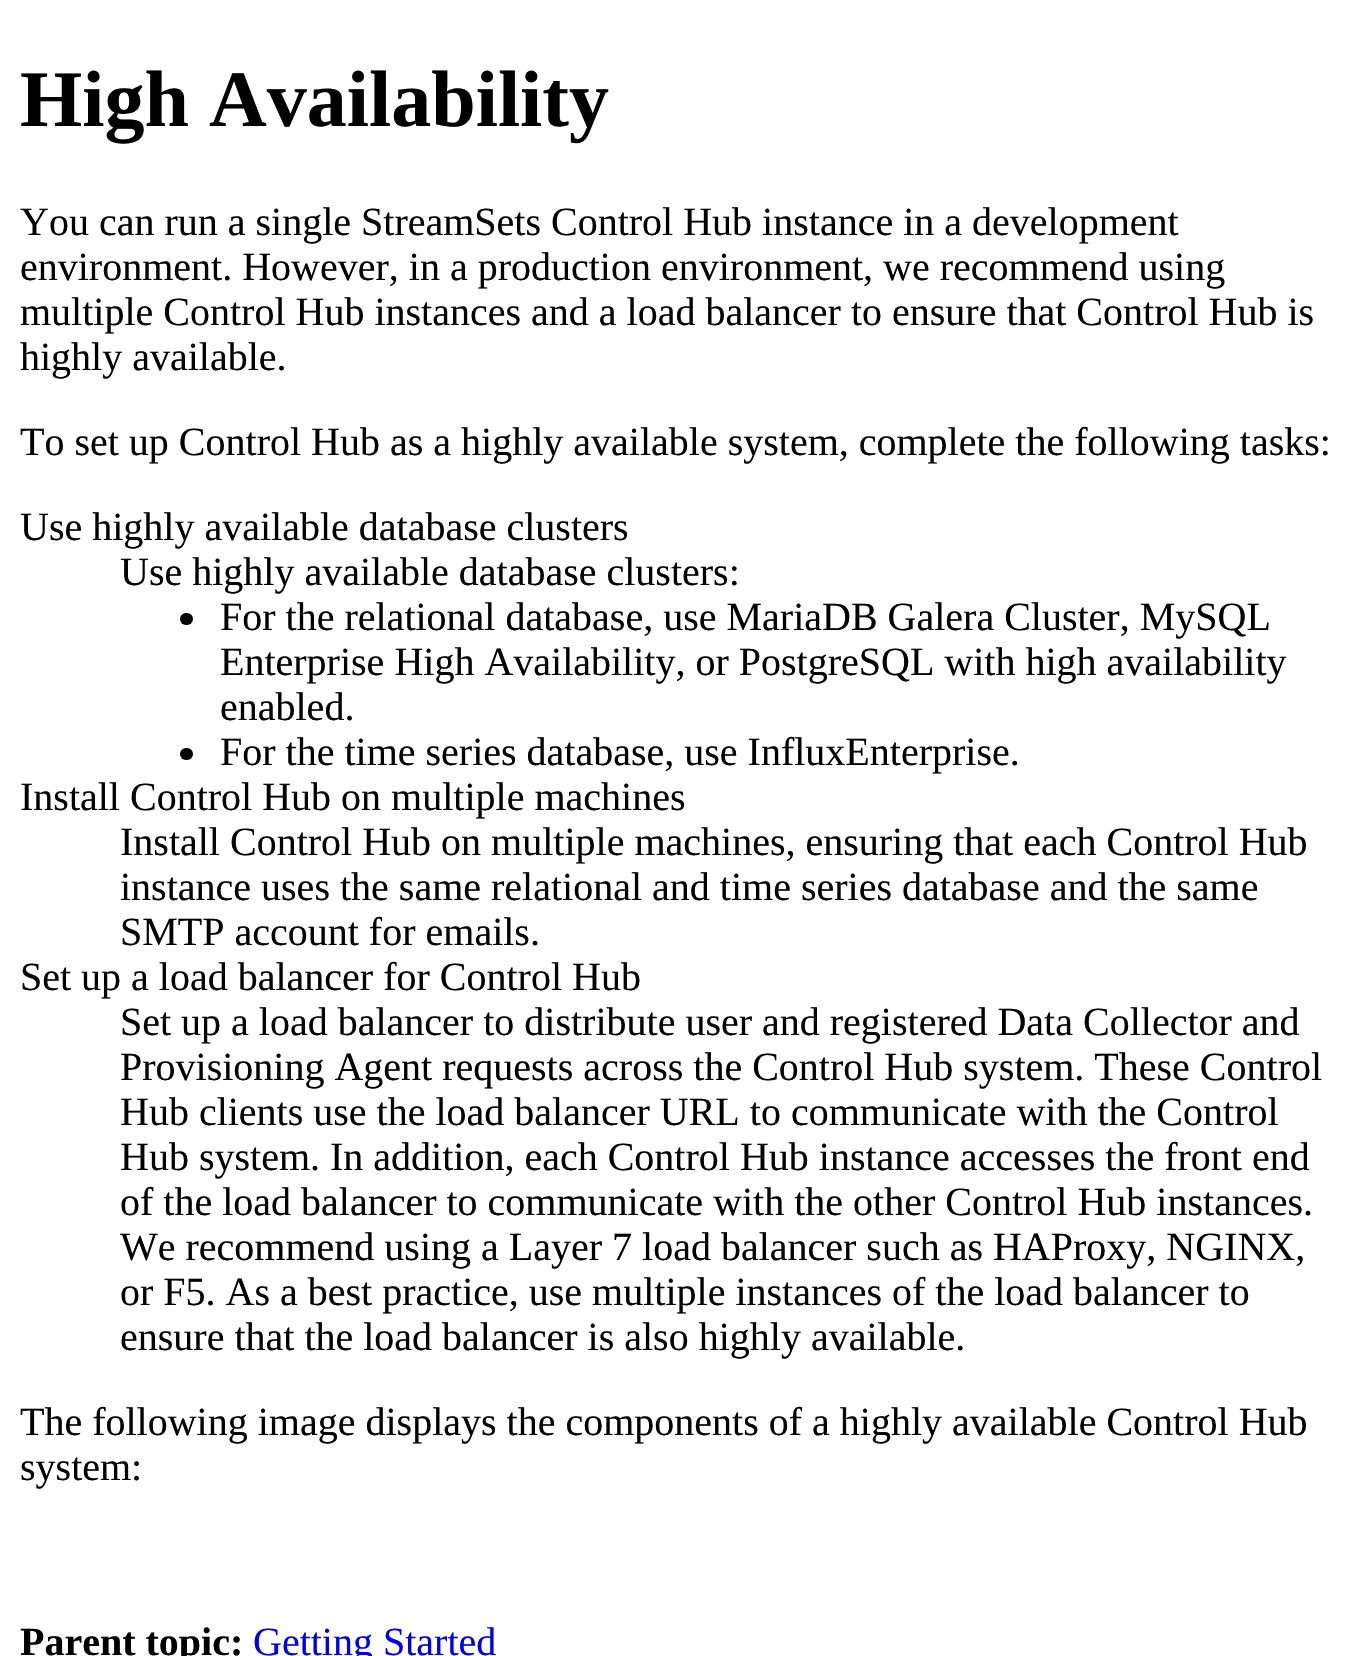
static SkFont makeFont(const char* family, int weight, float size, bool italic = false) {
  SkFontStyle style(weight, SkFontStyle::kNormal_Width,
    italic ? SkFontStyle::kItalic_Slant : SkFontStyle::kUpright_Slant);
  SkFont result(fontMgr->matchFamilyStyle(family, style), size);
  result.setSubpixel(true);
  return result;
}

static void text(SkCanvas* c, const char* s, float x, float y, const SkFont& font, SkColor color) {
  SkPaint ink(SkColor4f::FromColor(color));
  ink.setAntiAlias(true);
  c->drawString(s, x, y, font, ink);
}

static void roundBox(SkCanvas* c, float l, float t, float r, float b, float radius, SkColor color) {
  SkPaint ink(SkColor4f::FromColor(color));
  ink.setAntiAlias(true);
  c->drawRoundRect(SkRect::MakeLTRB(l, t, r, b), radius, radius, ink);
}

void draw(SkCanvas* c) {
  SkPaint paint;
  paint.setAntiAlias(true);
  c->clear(0xffffffff);
  SkFont face1 = makeFont("Liberation Serif", 700, 80);
  text(c, "High Availability", 20, 126, face1, 0xff000000);
  SkFont face2 = makeFont("Liberation Serif", 400, 40);
  text(c, "You can run a single StreamSets Control Hub instance in a development", 20, 235, face2, 0xff000000);
  text(c, "environment. However, in a production environment, we recommend using", 20, 280, face2, 0xff000000);
  text(c, "multiple Control Hub instances and a load balancer to ensure that Control Hub is", 20, 325, face2, 0xff000000);
  text(c, "highly available.", 20, 370, face2, 0xff000000);
  text(c, "To set up Control Hub as a highly available system, complete the following tasks:", 20, 455, face2, 0xff000000);
  text(c, "Use highly available database clusters", 20, 540, face2, 0xff000000);
  text(c, "Use highly available database clusters:", 120, 585, face2, 0xff000000);
  roundBox(c, 180, 613, 193, 625, 6, 0xff000000);
  text(c, "For the relational database, use MariaDB Galera Cluster, MySQL", 220, 630, face2, 0xff000000);
  text(c, "Enterprise High Availability, or PostgreSQL with high availability", 220, 675, face2, 0xff000000);
  text(c, "enabled.", 220, 720, face2, 0xff000000);
  roundBox(c, 180, 748, 193, 760, 6, 0xff000000);
  text(c, "For the time series database, use InfluxEnterprise.", 220, 765, face2, 0xff000000);
  text(c, "Install Control Hub on multiple machines", 20, 810, face2, 0xff000000);
  text(c, "Install Control Hub on multiple machines, ensuring that each Control Hub", 120, 855, face2, 0xff000000);
  text(c, "instance uses the same relational and time series database and the same", 120, 900, face2, 0xff000000);
  text(c, "SMTP account for emails.", 120, 945, face2, 0xff000000);
  text(c, "Set up a load balancer for Control Hub", 20, 990, face2, 0xff000000);
  text(c, "Set up a load balancer to distribute user and registered Data Collector and", 120, 1035, face2, 0xff000000);
  text(c, "Provisioning Agent requests across the Control Hub system. These Control", 120, 1080, face2, 0xff000000);
  text(c, "Hub clients use the load balancer URL to communicate with the Control", 120, 1125, face2, 0xff000000);
  text(c, "Hub system. In addition, each Control Hub instance accesses the front end", 120, 1170, face2, 0xff000000);
  text(c, "of the load balancer to communicate with the other Control Hub instances.", 120, 1215, face2, 0xff000000);
  text(c, "We recommend using a Layer 7 load balancer such as HAProxy, NGINX,", 120, 1260, face2, 0xff000000);
  text(c, "or F5. As a best practice, use multiple instances of the load balancer to", 120, 1305, face2, 0xff000000);
  text(c, "ensure that the load balancer is also highly available.", 120, 1350, face2, 0xff000000);
  text(c, "The following image displays the components of a highly available Control Hub", 20, 1435, face2, 0xff000000);
  text(c, "system:", 20, 1480, face2, 0xff000000);
  SkFont face3 = makeFont("Liberation Serif", 700, 40);
  text(c, "Parent topic:", 20, 1655, face3, 0xff000000);
  text(c, "Getting Started", 253, 1655, face2, 0xff0000ee);
}
